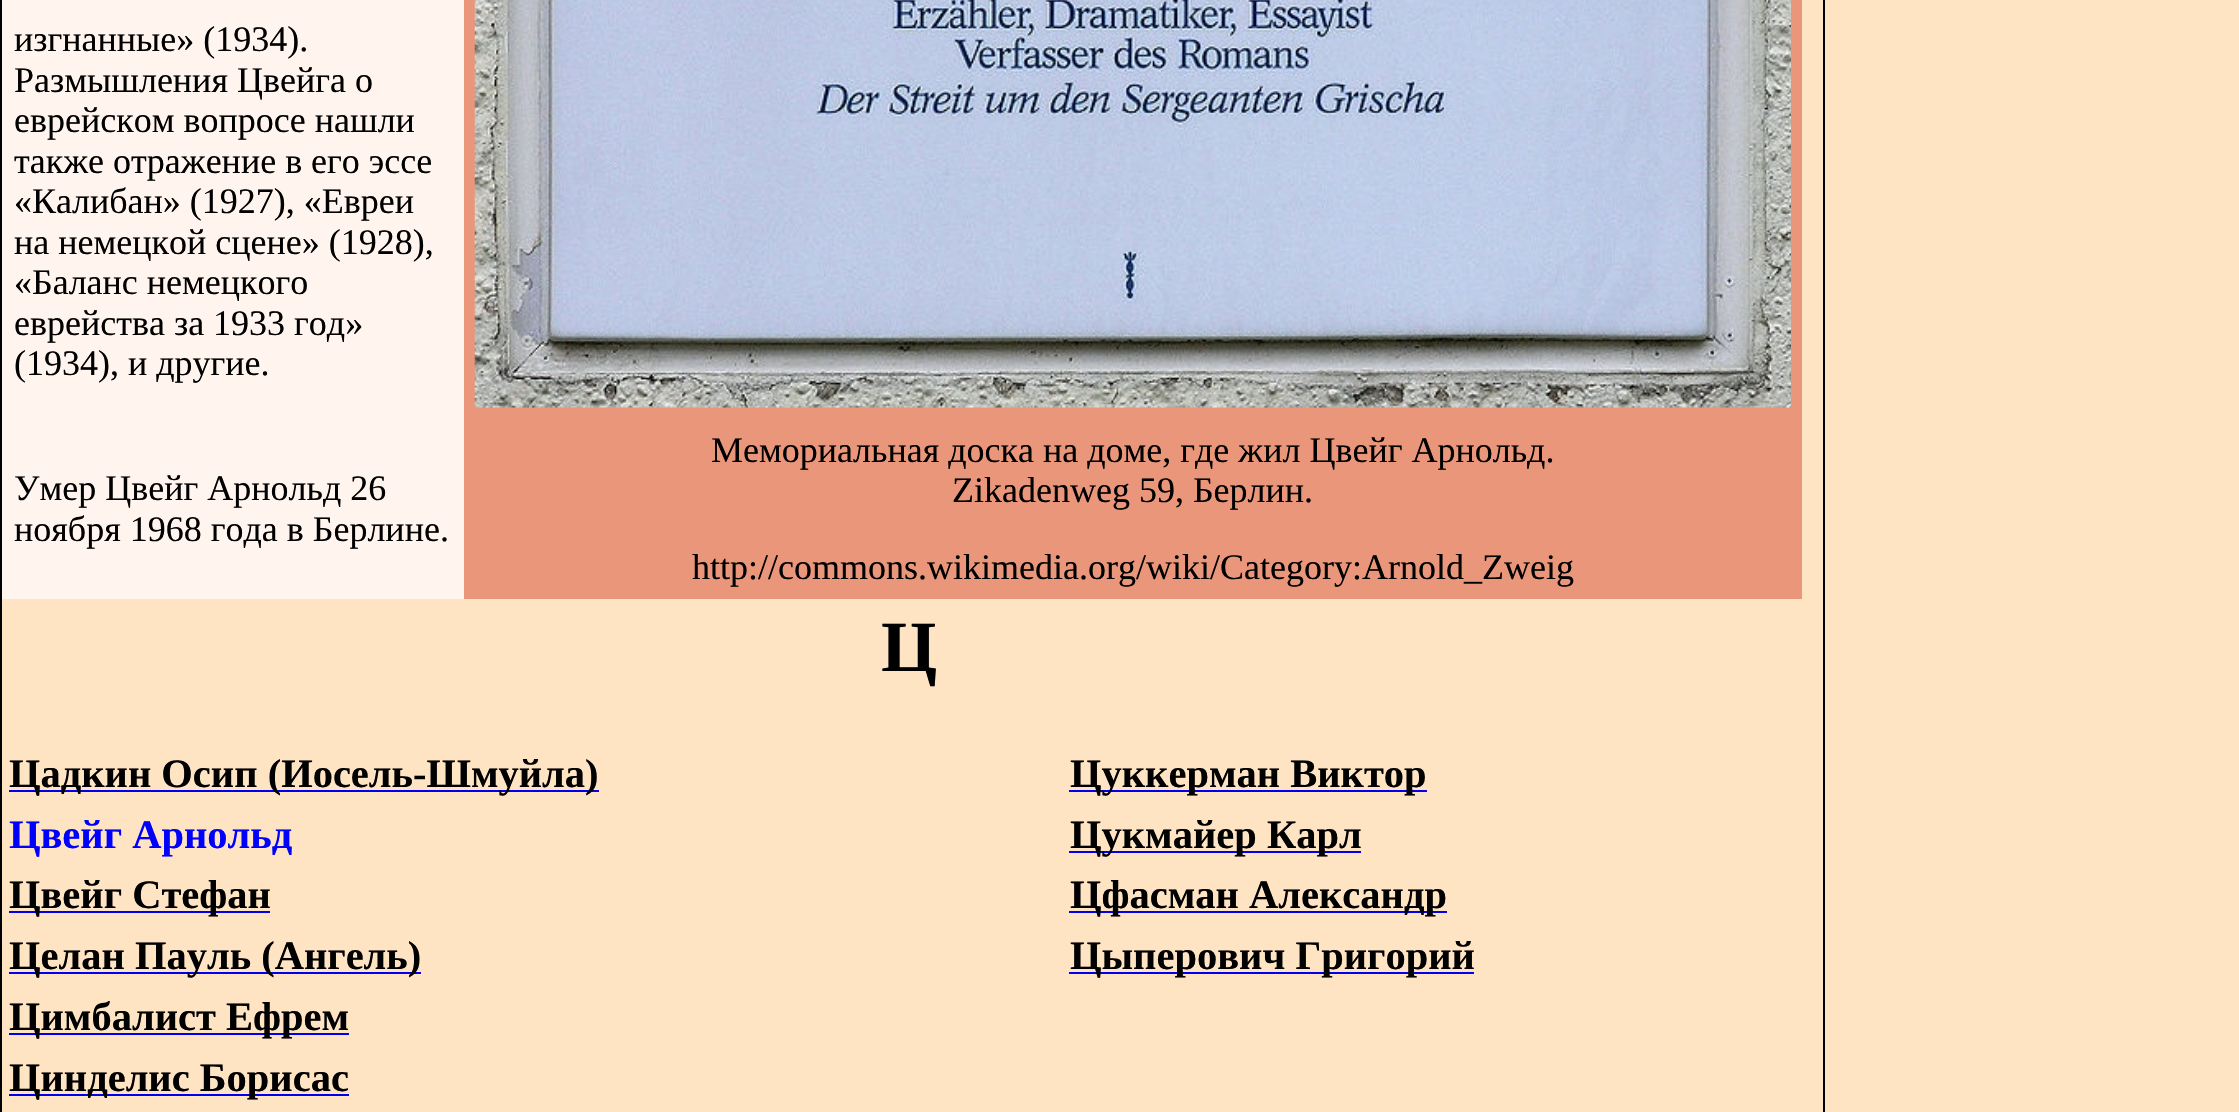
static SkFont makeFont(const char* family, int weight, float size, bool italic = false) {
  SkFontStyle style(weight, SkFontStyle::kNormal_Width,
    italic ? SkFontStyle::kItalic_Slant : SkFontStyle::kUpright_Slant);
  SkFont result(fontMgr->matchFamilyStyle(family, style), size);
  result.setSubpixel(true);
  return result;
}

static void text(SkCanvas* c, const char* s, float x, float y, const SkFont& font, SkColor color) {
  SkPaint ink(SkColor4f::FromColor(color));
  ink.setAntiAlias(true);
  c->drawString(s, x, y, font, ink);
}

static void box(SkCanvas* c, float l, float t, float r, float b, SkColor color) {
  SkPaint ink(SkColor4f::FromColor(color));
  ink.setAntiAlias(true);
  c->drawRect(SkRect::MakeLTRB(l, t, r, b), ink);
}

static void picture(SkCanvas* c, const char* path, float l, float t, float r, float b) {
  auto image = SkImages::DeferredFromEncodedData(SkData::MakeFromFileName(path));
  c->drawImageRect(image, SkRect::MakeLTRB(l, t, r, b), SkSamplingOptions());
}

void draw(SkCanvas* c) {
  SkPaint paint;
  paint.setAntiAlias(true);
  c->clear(0xffffe4c4);
  box(c, 0, 0, 2, 1112, 0xff000000);
  box(c, 2, 0, 464, 599, 0xfffff5ee);
  SkFont face1 = makeFont("Liberation Serif", 400, 36);
  text(c, "изгнанные» (1934).", 14, 51, face1, 0xff000000);
  text(c, "Размышления Цвейга о", 14, 92, face1, 0xff000000);
  text(c, "еврейском вопросе нашли", 14, 132, face1, 0xff000000);
  text(c, "также отражение в его эссе", 14, 173, face1, 0xff000000);
  text(c, "«Калибан» (1927), «Евреи", 14, 213, face1, 0xff000000);
  text(c, "на немецкой сцене» (1928),", 14, 254, face1, 0xff000000);
  text(c, "«Баланс немецкого", 14, 294, face1, 0xff000000);
  text(c, "еврейства за 1933 год»", 14, 335, face1, 0xff000000);
  text(c, "(1934), и другие.", 14, 375, face1, 0xff000000);
  box(c, 464, 0, 1802, 599, 0xffe9967a);
  picture(c, "img_01.png", 474, 0, 1791, 408);
  text(c, "Умер Цвейг Арнольд 26", 14, 500, face1, 0xff000000);
  text(c, "ноября 1968 года в Берлине.", 14, 541, face1, 0xff000000);
  text(c, "Мемориальная доска на доме, где жил Цвейг Арнольд.", 711, 462, face1, 0xff000000);
  text(c, "Zikadenweg 59, Берлин.", 952, 502, face1, 0xff000000);
  text(c, "http://commons.wikimedia.org/wiki/Category:Arnold_Zweig", 692, 579, face1, 0xff000000);
  SkFont face2 = makeFont("Liberation Serif", 700, 72);
  text(c, "Ц", 881, 671, face2, 0xff000000);
  box(c, 9, 790, 599, 792, 0xff0000ee);
  SkFont face3 = makeFont("Liberation Serif", 700, 40.5f);
  text(c, "Цадкин Осип (Иосель-Шмуйла)", 9, 787, face3, 0xff000000);
  box(c, 1069, 790, 1427, 792, 0xff0000ee);
  text(c, "Цуккерман Виктор", 1070, 787, face3, 0xff000000);
  text(c, "Цвейг Арнольд", 9, 848, face3, 0xff0000ff);
  box(c, 1069, 851, 1361, 853, 0xff0000ee);
  text(c, "Цукмайер Карл", 1070, 848, face3, 0xff000000);
  box(c, 9, 911, 270, 913, 0xff0000ee);
  text(c, "Цвейг Стефан", 9, 908, face3, 0xff000000);
  box(c, 1069, 911, 1447, 913, 0xff0000ee);
  text(c, "Цфасман Александр", 1070, 908, face3, 0xff000000);
  box(c, 9, 972, 421, 974, 0xff0000ee);
  text(c, "Целан Пауль (Ангель)", 9, 969, face3, 0xff000000);
  box(c, 1069, 972, 1474, 974, 0xff0000ee);
  text(c, "Цыперович Григорий", 1070, 969, face3, 0xff000000);
  box(c, 9, 1033, 349, 1035, 0xff0000ee);
  text(c, "Цимбалист Ефрем", 9, 1030, face3, 0xff000000);
  box(c, 9, 1094, 349, 1096, 0xff0000ee);
  text(c, "Цинделис Борисас", 9, 1091, face3, 0xff000000);
  box(c, 1823, 0, 1825, 1112, 0xff000000);
}
